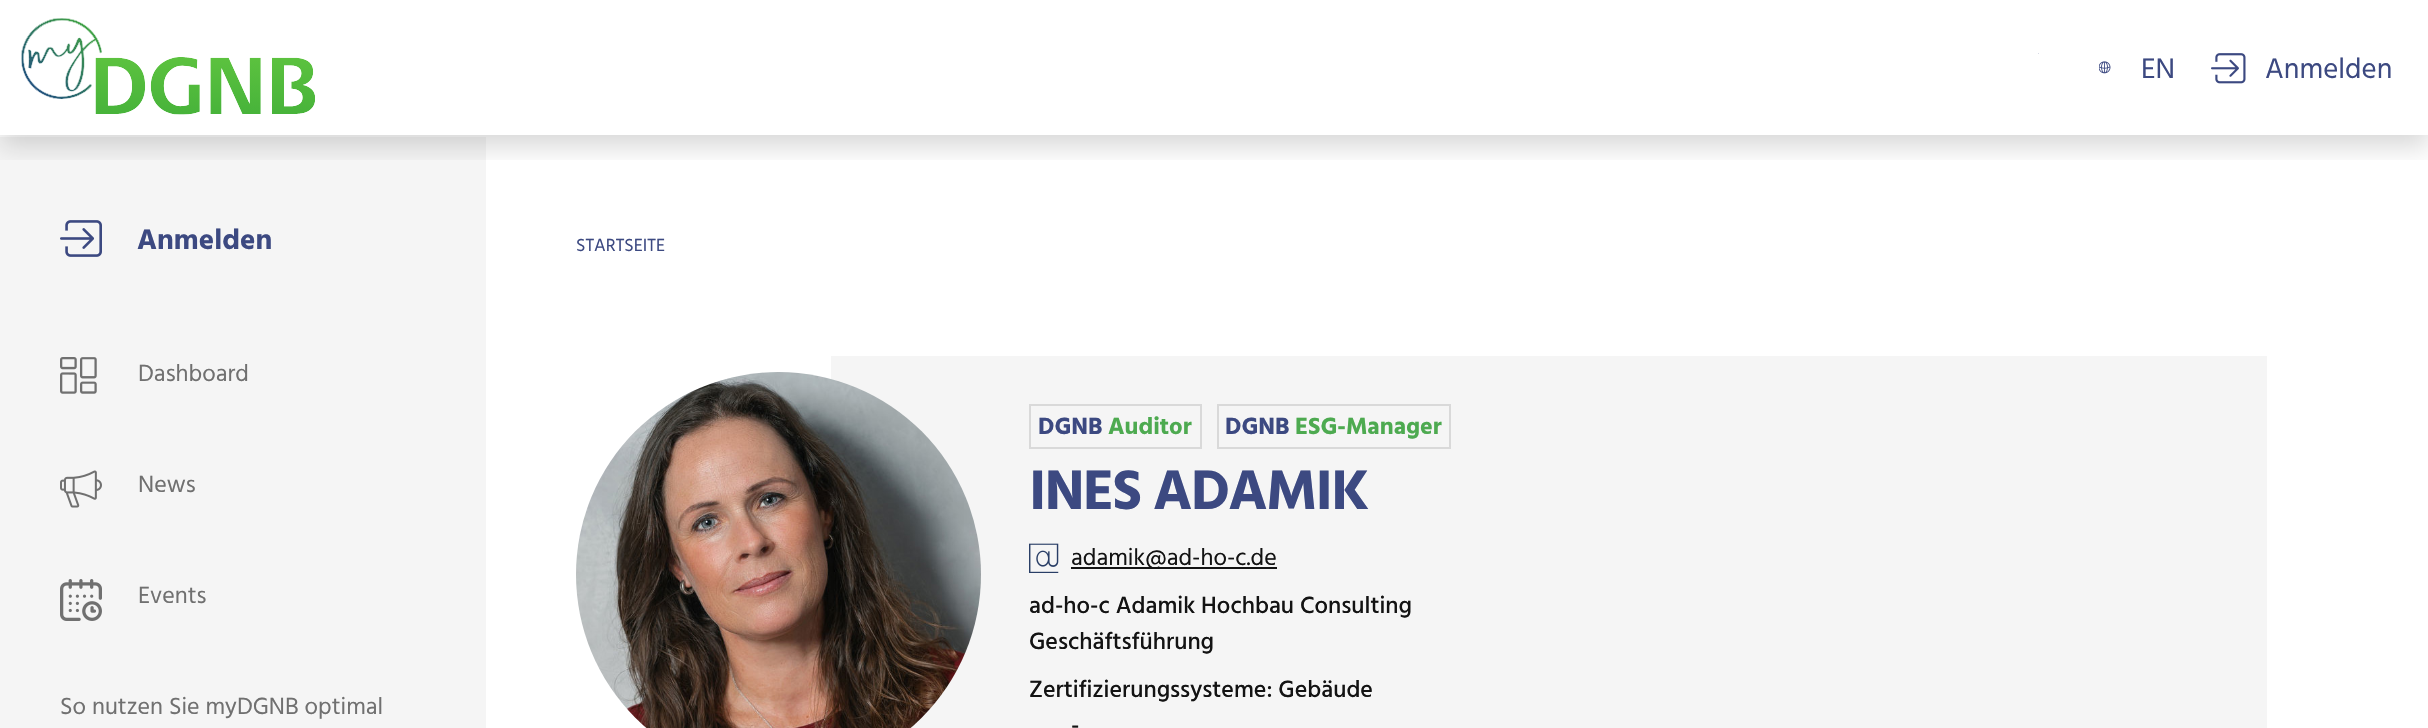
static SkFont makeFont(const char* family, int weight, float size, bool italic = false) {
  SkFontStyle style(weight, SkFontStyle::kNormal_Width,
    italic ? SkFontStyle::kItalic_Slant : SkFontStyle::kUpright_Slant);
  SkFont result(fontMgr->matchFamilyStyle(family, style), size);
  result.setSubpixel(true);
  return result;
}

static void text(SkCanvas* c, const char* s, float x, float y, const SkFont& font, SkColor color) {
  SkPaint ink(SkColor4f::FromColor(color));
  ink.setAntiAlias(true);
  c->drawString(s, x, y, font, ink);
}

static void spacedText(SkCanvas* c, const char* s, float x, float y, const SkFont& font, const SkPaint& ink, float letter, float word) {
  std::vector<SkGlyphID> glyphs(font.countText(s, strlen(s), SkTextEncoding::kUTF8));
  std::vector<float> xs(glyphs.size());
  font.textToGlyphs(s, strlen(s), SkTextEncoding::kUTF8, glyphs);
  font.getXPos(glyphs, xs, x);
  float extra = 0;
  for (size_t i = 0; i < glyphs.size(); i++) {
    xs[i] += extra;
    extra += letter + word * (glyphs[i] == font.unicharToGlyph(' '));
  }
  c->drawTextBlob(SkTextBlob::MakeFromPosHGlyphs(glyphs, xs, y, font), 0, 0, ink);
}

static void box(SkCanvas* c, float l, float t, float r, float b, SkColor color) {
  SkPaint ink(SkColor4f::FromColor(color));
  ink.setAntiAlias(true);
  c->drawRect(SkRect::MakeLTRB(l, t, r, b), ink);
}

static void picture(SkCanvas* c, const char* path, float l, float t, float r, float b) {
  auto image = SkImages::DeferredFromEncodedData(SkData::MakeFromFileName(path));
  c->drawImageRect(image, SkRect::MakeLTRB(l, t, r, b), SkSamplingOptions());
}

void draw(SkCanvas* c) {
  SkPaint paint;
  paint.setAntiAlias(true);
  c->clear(0xffffffff);
  box(c, 0, 137, 486, 728, 0xfff5f5f5);
  c->save();
  c->clipRect(SkRect::MakeLTRB(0, 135, 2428, 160));
  paint.setColor(0x26000000);
  paint.setMaskFilter(SkMaskFilter::MakeBlur(kNormal_SkBlurStyle, 12));
  c->drawRect(SkRect::MakeLTRB(0, 12, 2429, 147), paint);
  paint.setMaskFilter(nullptr);
  c->restore();
  picture(c, "img_01.png", 21, 18, 315, 115);
  box(c, 2038, 53, 2039, 54, 0xffd8dbe6);
  picture(c, "img_02.png", 2099, 61, 2111, 74);
  SkFont face1 = makeFont("Hind", 400, 29);
  text(c, "EN", 2141, 78, face1, 0xff3c4981);
  picture(c, "img_03.png", 2211, 53, 2246, 84);
  text(c, "Anmelden", 2265, 78, face1, 0xff3c4981);
  picture(c, "img_04.png", 60, 220, 102, 257);
  SkFont face2 = makeFont("Hind", 700, 29);
  text(c, "Anmelden", 137, 249, face2, 0xff3c4981);
  picture(c, "img_05.png", 60, 357, 97, 394);
  SkFont face3 = makeFont("Hind", 400, 24);
  text(c, "Dashboard", 138, 381, face3, 0xff707070);
  picture(c, "img_06.png", 60, 470, 102, 508);
  text(c, "News", 138, 492, face3, 0xff707070);
  picture(c, "img_07.png", 60, 579, 102, 621);
  text(c, "Events", 138, 603, face3, 0xff707070);
  text(c, "So nutzen Sie myDGNB optimal", 60, 714, face3, 0xff707070);
  SkFont face4 = makeFont("Hind", 400, 18);
  text(c, "STARTSEITE", 576, 251, face4, 0xff3c4981);
  box(c, 831, 356, 2267, 728, 0xfff5f5f5);
  picture(c, "img_08.png", 576, 372, 981, 728);
  paint.setStyle(SkPaint::kStroke_Style);
  paint.setStrokeWidth(2);
  paint.setColor(0xffd9d9d9);
  c->drawRect(SkRect::MakeLTRB(1030, 405, 1201, 448), paint);
  SkFont face5 = makeFont("Hind", 700, 24);
  text(c, "DGNB", 1038, 434, face5, 0xff3c4981);
  text(c, "Auditor", 1108, 434, face5, 0xff4daa50);
  c->drawRect(SkRect::MakeLTRB(1218, 405, 1450, 448), paint);
  text(c, "DGNB", 1225, 434, face5, 0xff3c4981);
  text(c, "ESG-Manager", 1295, 434, face5, 0xff4daa50);
  SkFont face6 = makeFont("Hind", 700, 57);
  paint.setStyle(SkPaint::kFill_Style);
  paint.setColor(0xff3c4981);
  spacedText(c, "INES ADAMIK", 1029, 509, face6, paint, -1.5f, 0);
  picture(c, "img_09.png", 1029, 543, 1059, 573);
  box(c, 1071, 567, 1277, 569, 0xff131313);
  text(c, "adamik@ad-ho-c.de", 1071, 565, face3, 0xff131313);
  SkFont face7 = makeFont("Hind", 500, 24);
  text(c, "ad-ho-c Adamik Hochbau Consulting", 1029, 613, face7, 0xff131313);
  text(c, "Geschäftsführung", 1029, 649, face7, 0xff131313);
  text(c, "Zertifizierungssysteme: Gebäude", 1029, 697, face7, 0xff131313);
  text(c, "-", 1071, 733, face7, 0xff131313);
}
